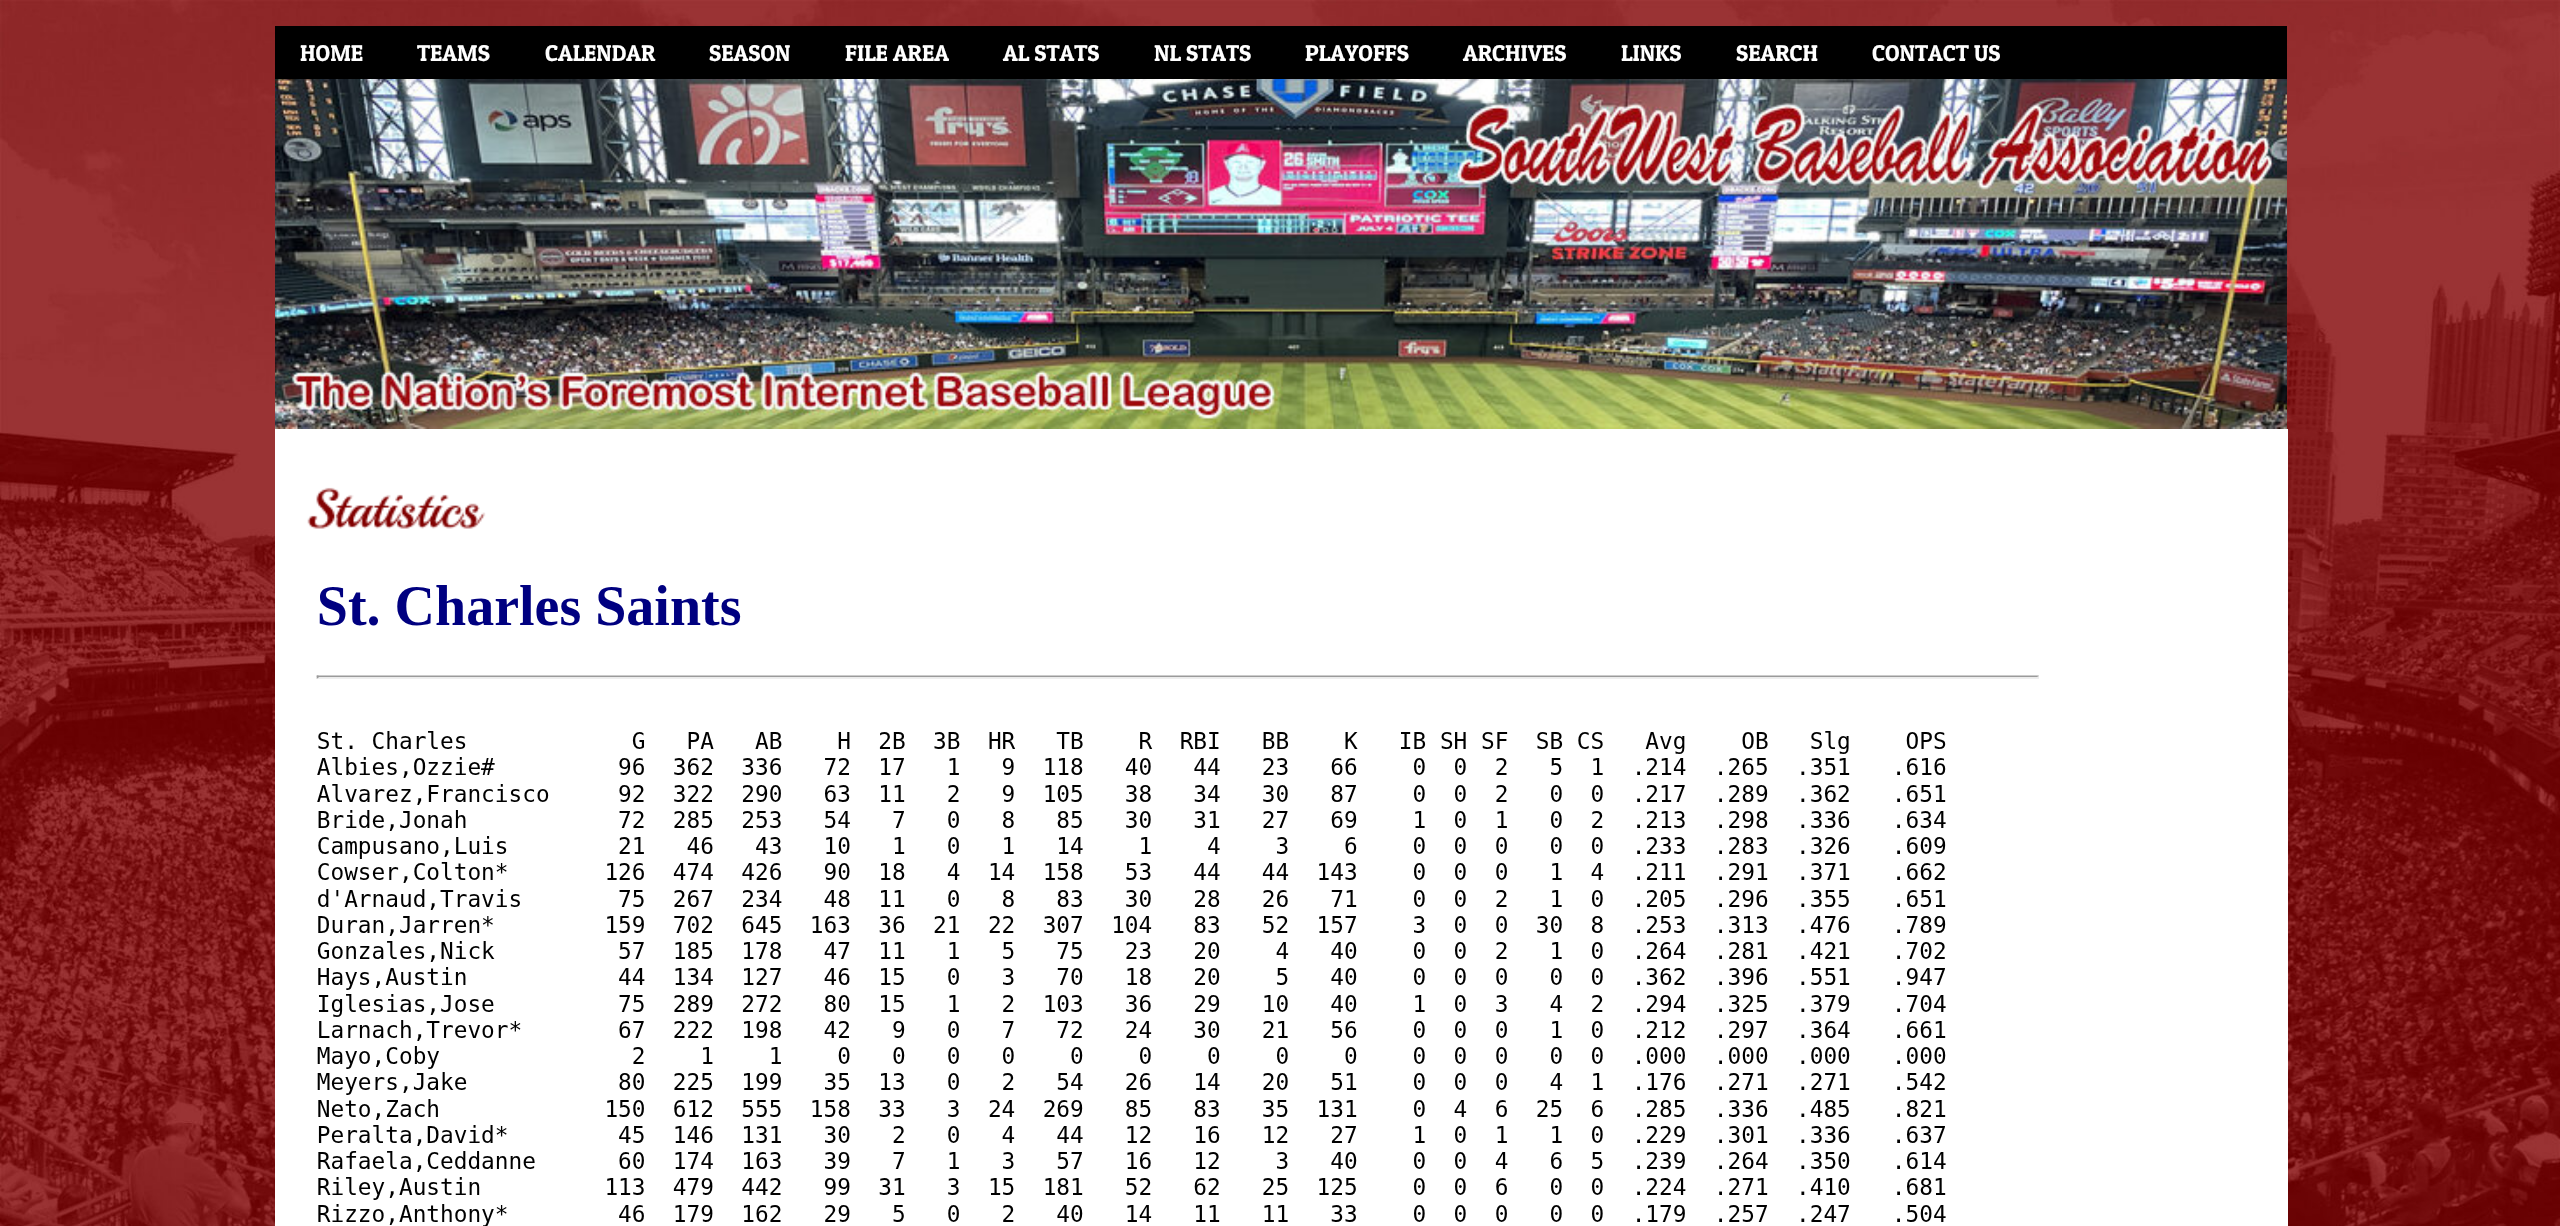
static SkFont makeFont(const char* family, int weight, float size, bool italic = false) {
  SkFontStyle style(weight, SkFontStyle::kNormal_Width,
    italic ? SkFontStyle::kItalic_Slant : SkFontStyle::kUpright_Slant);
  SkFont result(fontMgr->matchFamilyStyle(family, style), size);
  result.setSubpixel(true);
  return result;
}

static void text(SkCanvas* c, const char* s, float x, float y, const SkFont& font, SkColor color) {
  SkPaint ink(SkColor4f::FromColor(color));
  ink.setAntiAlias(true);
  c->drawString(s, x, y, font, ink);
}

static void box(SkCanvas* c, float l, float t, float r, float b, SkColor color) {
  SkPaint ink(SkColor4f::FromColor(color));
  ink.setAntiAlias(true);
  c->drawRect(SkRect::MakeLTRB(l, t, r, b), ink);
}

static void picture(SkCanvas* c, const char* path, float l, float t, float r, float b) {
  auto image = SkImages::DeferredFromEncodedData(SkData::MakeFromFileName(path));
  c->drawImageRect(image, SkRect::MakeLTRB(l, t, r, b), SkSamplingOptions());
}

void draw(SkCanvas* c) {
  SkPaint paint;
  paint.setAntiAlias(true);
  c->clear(0xffffffff);
  picture(c, "img_01.png", 0, 0, 2560, 1226);
  box(c, 275, 26, 2287, 79, 0xff000000);
  SkFont face1 = makeFont("Patua One", 400, 22.75f);
  text(c, "HOME", 300, 61, face1, 0xffffffff);
  text(c, "TEAMS", 417, 61, face1, 0xffffffff);
  text(c, "CALENDAR", 545, 61, face1, 0xffffffff);
  text(c, "SEASON", 709, 61, face1, 0xffffffff);
  text(c, "FILE AREA", 845, 61, face1, 0xffffffff);
  text(c, "AL STATS", 1003, 61, face1, 0xffffffff);
  text(c, "NL STATS", 1154, 61, face1, 0xffffffff);
  text(c, "PLAYOFFS", 1305, 61, face1, 0xffffffff);
  text(c, "ARCHIVES", 1463, 61, face1, 0xffffffff);
  text(c, "LINKS", 1621, 61, face1, 0xffffffff);
  text(c, "SEARCH", 1736, 61, face1, 0xffffffff);
  text(c, "CONTACT US", 1872, 61, face1, 0xffffffff);
  picture(c, "img_02.png", 275, 79, 2287, 429);
  box(c, 275, 429, 2288, 1226, 0xffffffff);
  picture(c, "img_03.png", 307, 487, 486, 529);
  picture(c, "img_04.png", 316, 585, 2039, 1226);
}
